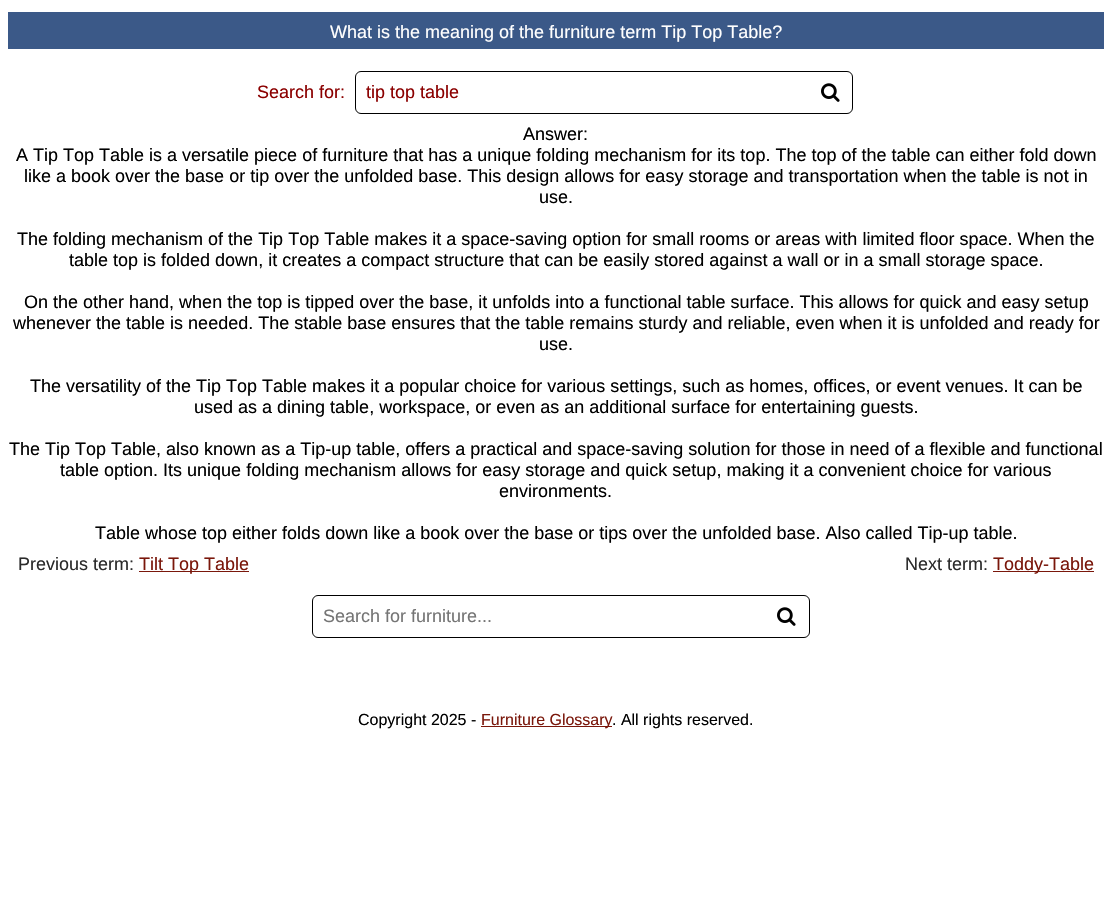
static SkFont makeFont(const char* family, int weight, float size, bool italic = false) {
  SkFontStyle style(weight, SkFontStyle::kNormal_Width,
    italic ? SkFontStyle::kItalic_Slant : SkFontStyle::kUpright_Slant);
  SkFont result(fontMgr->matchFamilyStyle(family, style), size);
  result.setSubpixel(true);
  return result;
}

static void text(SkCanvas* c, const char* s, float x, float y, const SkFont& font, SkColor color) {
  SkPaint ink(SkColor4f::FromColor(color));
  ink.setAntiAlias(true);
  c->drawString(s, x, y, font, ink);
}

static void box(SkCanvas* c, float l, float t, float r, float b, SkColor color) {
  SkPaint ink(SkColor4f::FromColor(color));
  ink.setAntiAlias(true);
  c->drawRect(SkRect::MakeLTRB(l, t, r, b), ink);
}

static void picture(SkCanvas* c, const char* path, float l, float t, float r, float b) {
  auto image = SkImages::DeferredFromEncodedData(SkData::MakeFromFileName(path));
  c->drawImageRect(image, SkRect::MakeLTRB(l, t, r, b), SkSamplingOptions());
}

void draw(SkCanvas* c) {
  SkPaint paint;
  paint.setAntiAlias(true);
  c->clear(0xffffffff);
  box(c, 8, 12, 1104, 49, 0xff3b5988);
  SkFont face1 = makeFont("Liberation Sans", 400, 18);
  text(c, "What is the meaning of the furniture term Tip Top Table?", 330, 38, face1, 0xffffffff);
  text(c, "Search for:", 257, 98, face1, 0xff8b0000);
  paint.setStyle(SkPaint::kStroke_Style);
  paint.setStrokeWidth(1);
  paint.setColor(0xff000000);
  c->drawRoundRect(SkRect::MakeLTRB(355.5f, 71.5f, 852.5f, 113.5f), 5.5f, 5.5f, paint);
  text(c, "tip top table", 366, 98, face1, 0xff8b0000);
  picture(c, "img_01.png", 821, 83, 840, 102);
  text(c, "Answer:", 523, 140, face1, 0xff000000);
  text(c, "A Tip Top Table is a versatile piece of furniture that has a unique folding mechanism for its top. The top of the table can either fold down", 16, 161, face1, 0xff000000);
  text(c, "like a book over the base or tip over the unfolded base. This design allows for easy storage and transportation when the table is not in", 24, 182, face1, 0xff000000);
  text(c, "use.", 539, 203, face1, 0xff000000);
  text(c, "The folding mechanism of the Tip Top Table makes it a space-saving option for small rooms or areas with limited floor space. When the", 17, 245, face1, 0xff000000);
  text(c, "table top is folded down, it creates a compact structure that can be easily stored against a wall or in a small storage space.", 69, 266, face1, 0xff000000);
  text(c, "On the other hand, when the top is tipped over the base, it unfolds into a functional table surface. This allows for quick and easy setup", 24, 308, face1, 0xff000000);
  text(c, "whenever the table is needed. The stable base ensures that the table remains sturdy and reliable, even when it is unfolded and ready for", 13, 329, face1, 0xff000000);
  text(c, "use.", 539, 350, face1, 0xff000000);
  text(c, "The versatility of the Tip Top Table makes it a popular choice for various settings, such as homes, offices, or event venues. It can be", 30, 392, face1, 0xff000000);
  text(c, "used as a dining table, workspace, or even as an additional surface for entertaining guests.", 194, 413, face1, 0xff000000);
  text(c, "The Tip Top Table, also known as a Tip-up table, offers a practical and space-saving solution for those in need of a flexible and functional", 9, 455, face1, 0xff000000);
  text(c, "table option. Its unique folding mechanism allows for easy storage and quick setup, making it a convenient choice for various", 60, 476, face1, 0xff000000);
  text(c, "environments.", 499, 497, face1, 0xff000000);
  text(c, "Table whose top either folds down like a book over the base or tips over the unfolded base. Also called Tip-up table.", 95, 539, face1, 0xff000000);
  text(c, "Previous term:", 18, 570, face1, 0xff2b2b2b);
  box(c, 139, 571, 249, 572, 0xff7a170b);
  text(c, "Tilt Top Table", 139, 570, face1, 0xff7a170b);
  text(c, "Next term:", 905, 570, face1, 0xff2b2b2b);
  box(c, 993, 571, 1094, 572, 0xff7a170b);
  text(c, "Toddy-Table", 993, 570, face1, 0xff7a170b);
  c->drawRoundRect(SkRect::MakeLTRB(312.5f, 595.5f, 809.5f, 637.5f), 5.5f, 5.5f, paint);
  text(c, "Search for furniture...", 323, 622, face1, 0xff757575);
  picture(c, "img_01.png", 777, 607, 796, 626);
  SkFont face2 = makeFont("Liberation Sans", 400, 16);
  text(c, "Copyright 2025 -", 358, 725, face2, 0xff000000);
  box(c, 481, 726, 612, 727, 0xff7a170b);
  text(c, "Furniture Glossary", 481, 725, face2, 0xff7a170b);
  text(c, ". All rights reserved.", 612, 725, face2, 0xff000000);
}
